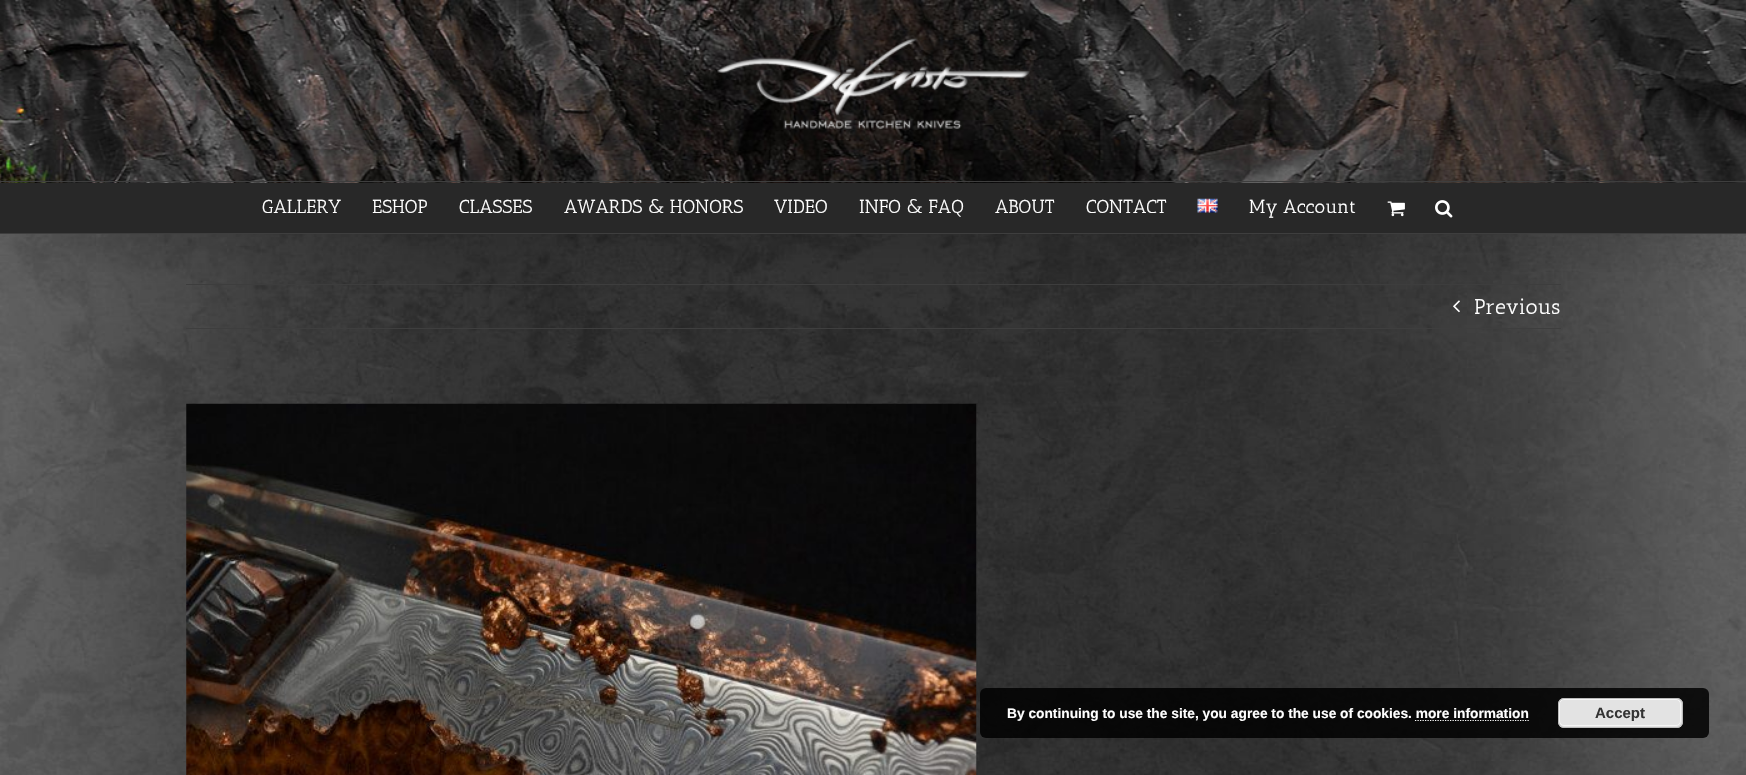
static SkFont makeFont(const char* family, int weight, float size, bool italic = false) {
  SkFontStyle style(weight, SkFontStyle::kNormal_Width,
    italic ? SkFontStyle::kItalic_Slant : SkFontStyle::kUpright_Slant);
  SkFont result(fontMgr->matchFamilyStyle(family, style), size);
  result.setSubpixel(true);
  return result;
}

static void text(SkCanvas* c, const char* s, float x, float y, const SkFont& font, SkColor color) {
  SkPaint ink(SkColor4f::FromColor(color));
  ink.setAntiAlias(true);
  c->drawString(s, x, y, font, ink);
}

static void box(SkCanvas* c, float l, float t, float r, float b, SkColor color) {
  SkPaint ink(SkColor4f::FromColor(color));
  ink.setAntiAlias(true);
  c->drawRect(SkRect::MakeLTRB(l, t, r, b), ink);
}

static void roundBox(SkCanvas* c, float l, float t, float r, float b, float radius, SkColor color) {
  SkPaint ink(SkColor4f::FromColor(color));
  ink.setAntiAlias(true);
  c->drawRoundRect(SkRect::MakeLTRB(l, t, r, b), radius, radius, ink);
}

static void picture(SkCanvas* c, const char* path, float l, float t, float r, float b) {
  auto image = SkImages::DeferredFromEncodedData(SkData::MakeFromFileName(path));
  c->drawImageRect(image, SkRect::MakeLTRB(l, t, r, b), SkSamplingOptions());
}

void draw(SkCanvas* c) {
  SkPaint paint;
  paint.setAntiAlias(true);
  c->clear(0xffffffff);
  picture(c, "img_06.png", 0, 234, 1746, 775);
  box(c, 186, 284, 1561, 285, 0xff3e3e3e);
  box(c, 186, 328, 1561, 329, 0xff3e3e3e);
  picture(c, "img_07.png", 1453, 300, 1460, 313);
  paint.setColor(0x24000000);
  paint.setMaskFilter(SkMaskFilter::MakeBlur(kNormal_SkBlurStyle, 31));
  c->drawRect(SkRect::MakeLTRB(3, 15, 1744, 244), paint);
  paint.setMaskFilter(nullptr);
  picture(c, "img_01.png", 0, 0, 1746, 183);
  box(c, 0, 181, 1746, 182, 0xff3e3e3e);
  picture(c, "img_02.png", 717, 38, 1030, 129);
  box(c, 0, 183, 1746, 233, 0xff282828);
  box(c, 0, 233, 1746, 234, 0xff3e3e3e);
  SkFont face1 = makeFont("Antic Slab", 400, 18.75f);
  text(c, "GALLERY", 262, 213, face1, 0xffffffff);
  text(c, "ESHOP", 372, 213, face1, 0xffffffff);
  text(c, "CLASSES", 459, 213, face1, 0xffffffff);
  text(c, "AWARDS & HONORS", 564, 213, face1, 0xffffffff);
  text(c, "VIDEO", 774, 213, face1, 0xffffffff);
  text(c, "INFO & FAQ", 859, 213, face1, 0xffffffff);
  text(c, "ABOUT", 995, 213, face1, 0xffffffff);
  text(c, "CONTACT", 1086, 213, face1, 0xffffffff);
  picture(c, "img_03.png", 1197, 198, 1218, 213);
  text(c, "My Account", 1249, 213, face1, 0xffffffff);
  picture(c, "img_04.png", 1387, 201, 1405, 217);
  picture(c, "img_05.png", 1435, 200, 1453, 218);
  SkFont face2 = makeFont("Antic Slab", 400, 21.25f);
  text(c, "Previous", 1474, 314, face2, 0xffffffff);
  picture(c, "img_08.png", 186, 403, 977, 775);
  roundBox(c, 980, 688, 1709, 738, 6, 0xd9000000);
  SkFont face3 = makeFont("Liberation Sans", 700, 13.75f);
  text(c, "By continuing to use the site, you agree to the use of cookies. more information", 1007, 718, face3, 0xffffffff);
  roundBox(c, 1558, 698, 1683, 728, 6, 0xffe3e3e3);
  paint.setStyle(SkPaint::kStroke_Style);
  paint.setStrokeWidth(1);
  paint.setColor(0xfff6f6f6);
  c->drawRoundRect(SkRect::MakeLTRB(1559.5f, 699.5f, 1680.5f, 725.5f), 4.5f, 4.5f, paint);
  paint.setColor(0xffbbbbbb);
  c->drawRoundRect(SkRect::MakeLTRB(1558.5f, 698.5f, 1682.5f, 727.5f), 5.5f, 5.5f, paint);
  SkFont face4 = makeFont("Liberation Sans", 700, 15);
  text(c, "Accept", 1595, 718, face4, 0xff333333);
  paint.setStrokeWidth(1.2f);
  paint.setColor(0xffffffff);
  paint.setPathEffect(SkDashPathEffect::Make({{1.25f, 1.25f}}, 0));
  c->drawPath(SkPathBuilder().moveTo(1415, 720.5f).lineTo(1529, 720.5f).detach(), paint);
  paint.setPathEffect(nullptr);
}
